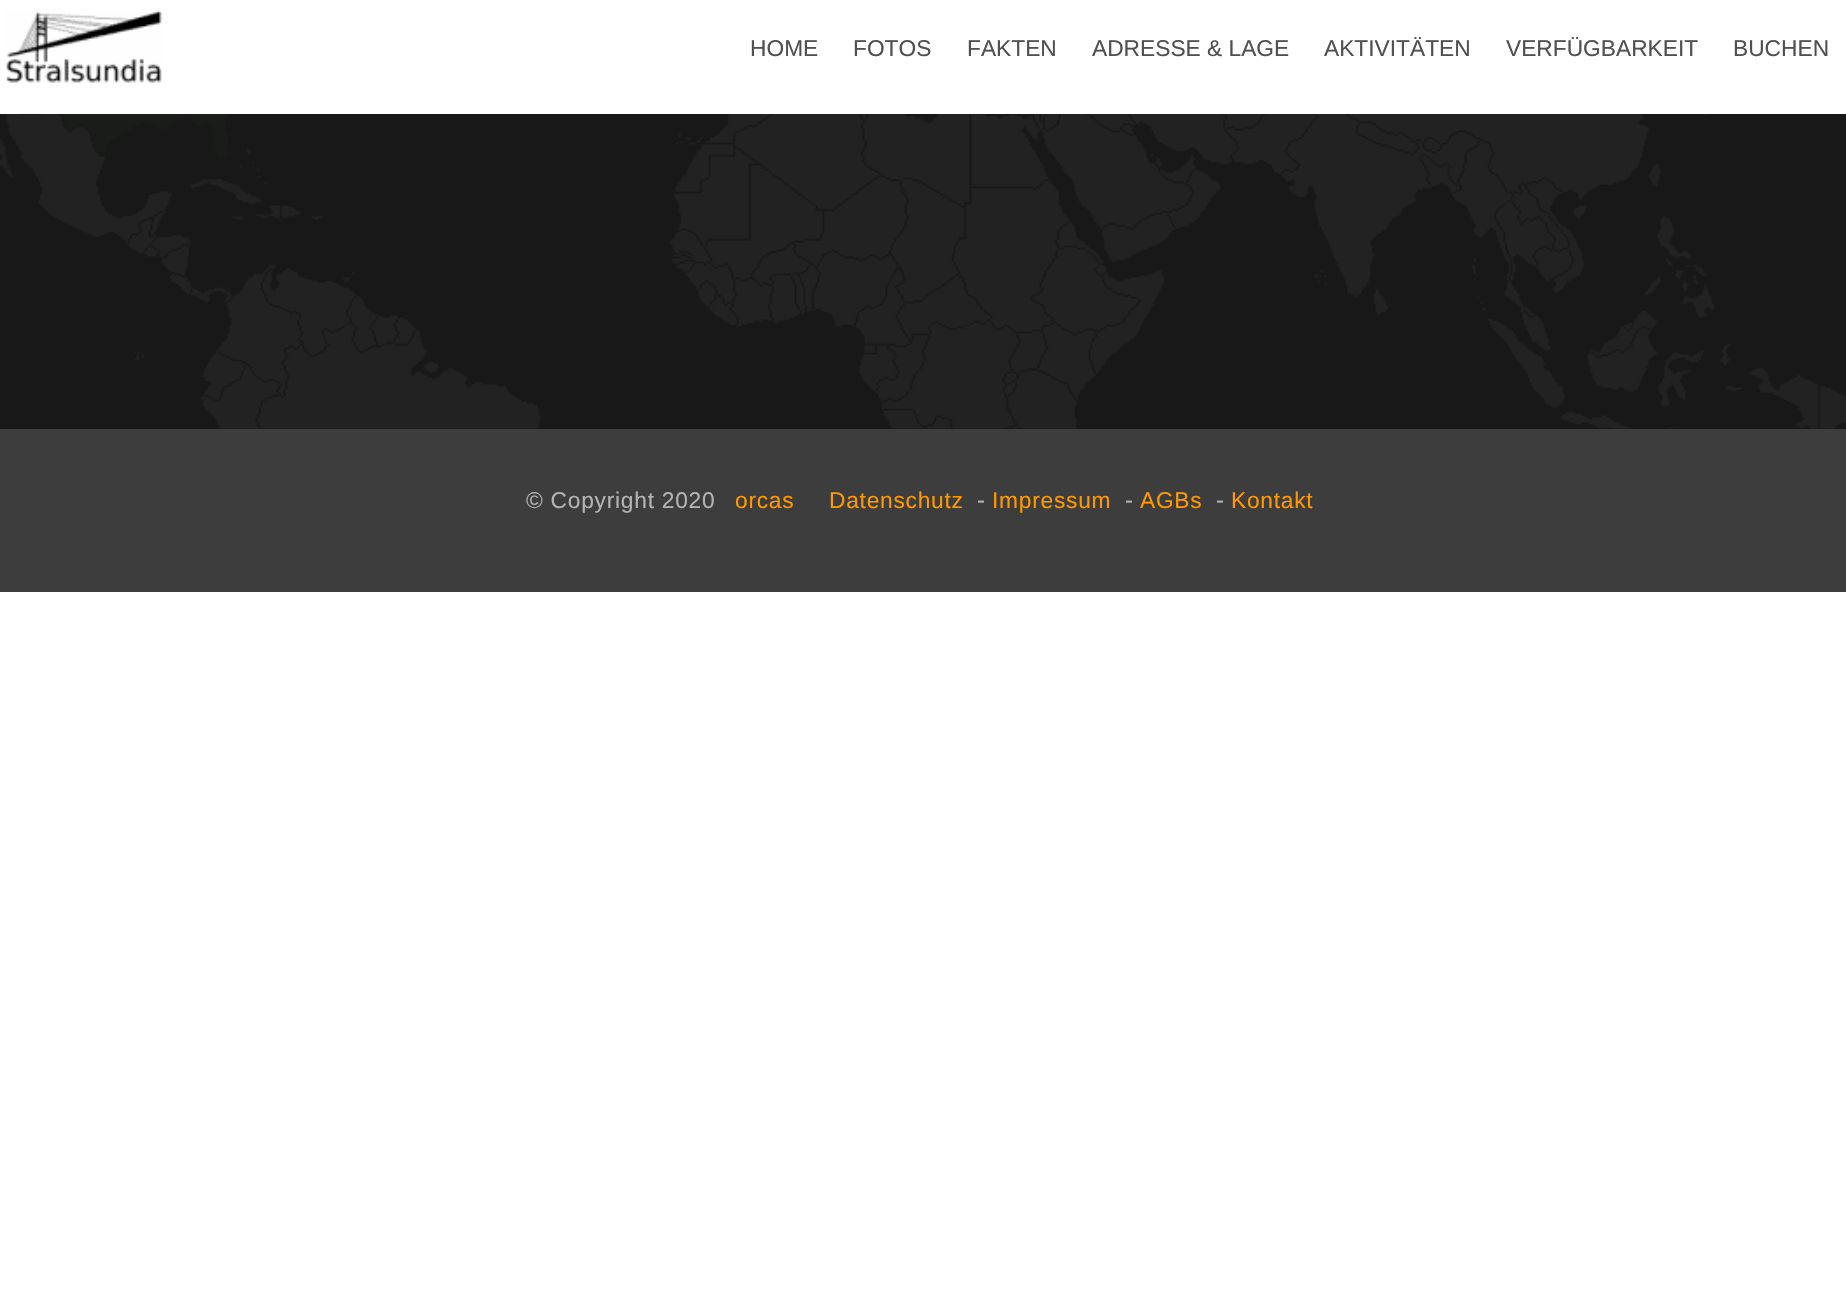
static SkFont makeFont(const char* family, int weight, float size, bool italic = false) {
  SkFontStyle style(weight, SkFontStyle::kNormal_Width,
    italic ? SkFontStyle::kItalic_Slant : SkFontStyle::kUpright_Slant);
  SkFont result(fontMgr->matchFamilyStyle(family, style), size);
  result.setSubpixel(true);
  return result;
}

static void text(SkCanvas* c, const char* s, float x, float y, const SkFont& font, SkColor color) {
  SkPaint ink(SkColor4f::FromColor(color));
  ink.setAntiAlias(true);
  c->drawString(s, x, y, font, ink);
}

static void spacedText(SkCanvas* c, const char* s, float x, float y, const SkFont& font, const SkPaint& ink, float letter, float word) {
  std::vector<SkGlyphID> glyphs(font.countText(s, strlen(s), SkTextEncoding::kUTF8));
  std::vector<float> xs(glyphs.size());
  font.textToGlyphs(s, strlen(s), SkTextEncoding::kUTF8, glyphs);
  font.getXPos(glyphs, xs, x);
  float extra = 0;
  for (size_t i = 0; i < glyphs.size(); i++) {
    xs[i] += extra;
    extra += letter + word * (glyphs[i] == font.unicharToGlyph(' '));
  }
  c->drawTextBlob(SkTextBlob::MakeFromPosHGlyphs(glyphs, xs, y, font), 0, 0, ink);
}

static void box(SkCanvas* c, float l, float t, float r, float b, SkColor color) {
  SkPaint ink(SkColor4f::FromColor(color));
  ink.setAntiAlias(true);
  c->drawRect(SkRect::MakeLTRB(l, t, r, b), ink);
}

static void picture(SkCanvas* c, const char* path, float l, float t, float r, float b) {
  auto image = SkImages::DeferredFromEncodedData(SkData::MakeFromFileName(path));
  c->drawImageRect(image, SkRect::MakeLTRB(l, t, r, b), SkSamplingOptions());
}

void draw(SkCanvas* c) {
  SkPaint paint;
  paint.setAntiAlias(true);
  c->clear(0xffffffff);
  picture(c, "img_01.png", 5, 10, 163, 83);
  SkFont face1 = makeFont("Arimo", 400, 22.75f);
  text(c, "HOME", 750, 56, face1, 0xff505050);
  text(c, "FOTOS", 853, 56, face1, 0xff505050);
  text(c, "FAKTEN", 967, 56, face1, 0xff505050);
  text(c, "ADRESSE & LAGE", 1092, 56, face1, 0xff505050);
  text(c, "AKTIVITÄTEN", 1324, 56, face1, 0xff505050);
  text(c, "VERFÜGBARKEIT", 1506, 56, face1, 0xff505050);
  text(c, "BUCHEN", 1733, 56, face1, 0xff505050);
  box(c, 0, 114, 1846, 429, 0xff181818);
  picture(c, "img_02.png", 0, 114, 1846, 429);
  box(c, 0, 429, 1846, 592, 0xff3d3d3d);
  paint.setColor(0xffb4b4b4);
  spacedText(c, "© Copyright 2020", 526, 508, face1, paint, 0.75f, 0);
  paint.setColor(0xffff9900);
  spacedText(c, "orcas", 735, 508, face1, paint, 0.75f, 0);
  spacedText(c, "Datenschutz", 829, 508, face1, paint, 0.75f, 0);
  SkFont face2 = makeFont("Arimo", 400, 24);
  text(c, "-", 977, 508, face2, 0xffb4b4b4);
  spacedText(c, "Impressum", 992, 508, face1, paint, 0.75f, 0);
  text(c, "-", 1125, 508, face2, 0xffb4b4b4);
  spacedText(c, "AGBs", 1140, 508, face1, paint, 0.75f, 0);
  text(c, "-", 1216, 508, face2, 0xffb4b4b4);
  spacedText(c, "Kontakt", 1231, 508, face1, paint, 0.75f, 0);
}
